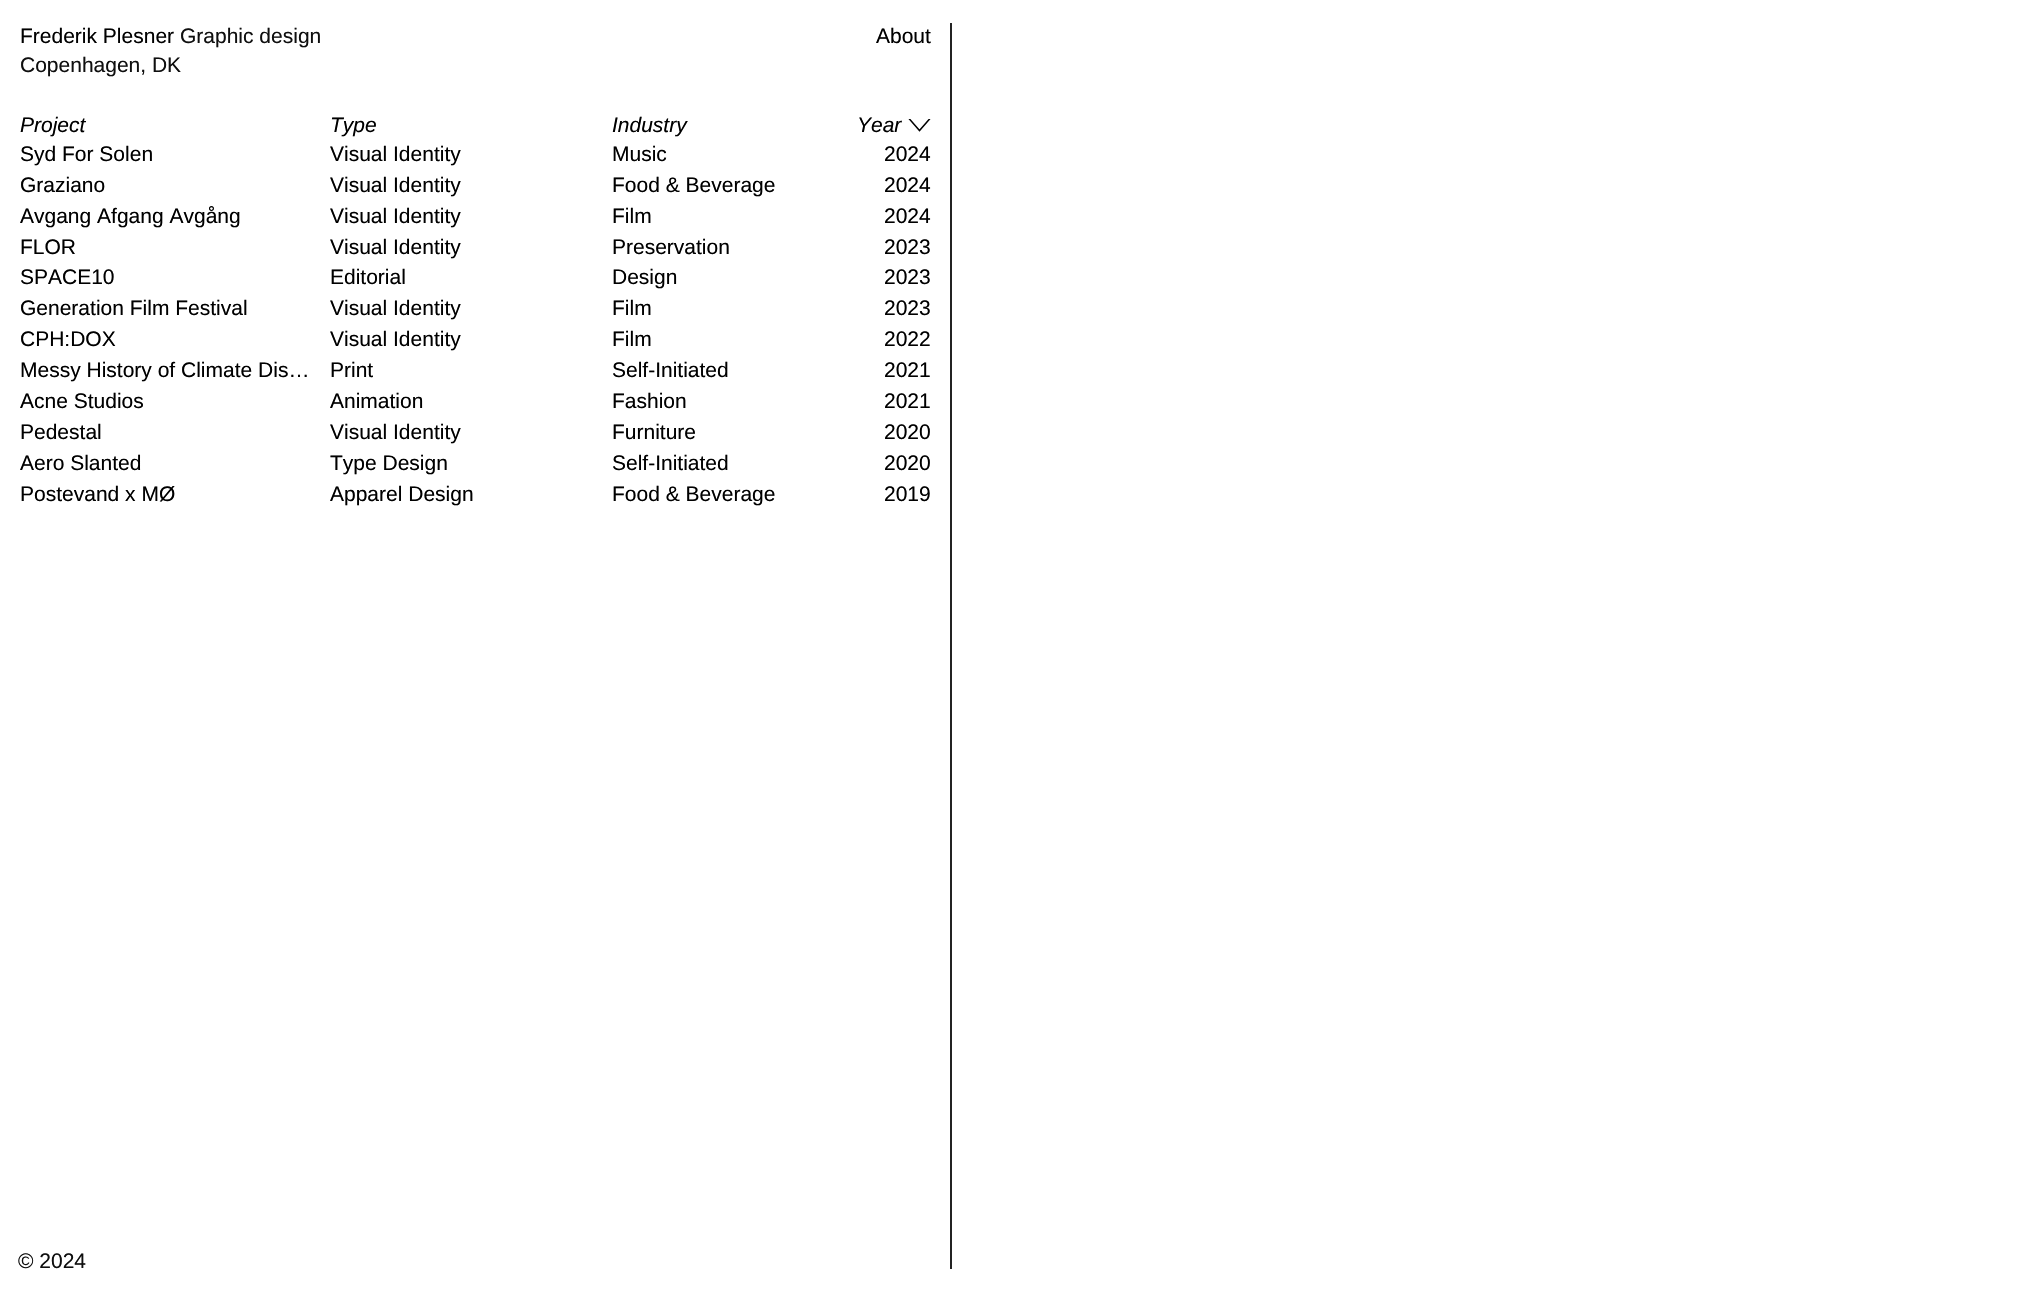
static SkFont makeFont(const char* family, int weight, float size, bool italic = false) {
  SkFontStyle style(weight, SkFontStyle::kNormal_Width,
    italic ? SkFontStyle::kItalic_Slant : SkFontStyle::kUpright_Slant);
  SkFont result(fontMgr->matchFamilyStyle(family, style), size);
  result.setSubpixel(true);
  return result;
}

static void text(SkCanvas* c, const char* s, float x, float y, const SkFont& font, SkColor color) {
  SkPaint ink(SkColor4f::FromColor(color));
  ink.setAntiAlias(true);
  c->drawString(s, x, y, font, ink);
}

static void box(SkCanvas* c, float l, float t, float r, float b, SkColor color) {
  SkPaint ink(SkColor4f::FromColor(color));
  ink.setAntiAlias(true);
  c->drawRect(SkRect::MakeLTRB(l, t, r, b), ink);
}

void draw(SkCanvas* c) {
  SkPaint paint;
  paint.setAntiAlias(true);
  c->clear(0xffffffff);
  box(c, 950, 23, 952, 1269, 0xff232323);
  SkFont face1 = makeFont("Liberation Sans", 400, 21);
  text(c, "Frederik Plesner", 20, 43, face1, 0xff000000);
  text(c, "Graphic design", 180, 43, face1, 0xff0f0f0f);
  text(c, "Copenhagen, DK", 20, 72, face1, 0xff0f0f0f);
  text(c, "About", 876, 43, face1, 0xff000000);
  SkFont face2 = makeFont("Liberation Sans", 400, 21, true);
  text(c, "Project", 20, 132, face2, 0xff000000);
  text(c, "Type", 330, 132, face2, 0xff000000);
  text(c, "Industry", 612, 132, face2, 0xff000000);
  text(c, "Year", 857, 132, face2, 0xff000000);
  c->save();
  c->clipRect(SkRect::MakeLTRB(908, 119, 932, 132));
  paint.setStyle(SkPaint::kStroke_Style);
  paint.setStrokeWidth(1.5f);
  paint.setColor(0xff000000);
  c->drawPath(SkPathBuilder().moveTo(909, 118.5f).lineTo(919.5f, 130.5f).lineTo(930, 118.5f).detach(), paint);
  c->restore();
  text(c, "Syd For Solen", 20, 161, face1, 0xff000000);
  text(c, "Visual Identity", 330, 161, face1, 0xff000000);
  text(c, "Music", 612, 161, face1, 0xff000000);
  text(c, "2024", 884, 161, face1, 0xff000000);
  text(c, "Graziano", 20, 192, face1, 0xff000000);
  text(c, "Visual Identity", 330, 192, face1, 0xff000000);
  text(c, "Food & Beverage", 612, 192, face1, 0xff000000);
  text(c, "2024", 884, 192, face1, 0xff000000);
  text(c, "Avgang Afgang Avgång", 20, 223, face1, 0xff000000);
  text(c, "Visual Identity", 330, 223, face1, 0xff000000);
  text(c, "Film", 612, 223, face1, 0xff000000);
  text(c, "2024", 884, 223, face1, 0xff000000);
  text(c, "FLOR", 20, 254, face1, 0xff000000);
  text(c, "Visual Identity", 330, 254, face1, 0xff000000);
  text(c, "Preservation", 612, 254, face1, 0xff000000);
  text(c, "2023", 884, 254, face1, 0xff000000);
  text(c, "SPACE10", 20, 284, face1, 0xff000000);
  text(c, "Editorial", 330, 284, face1, 0xff000000);
  text(c, "Design", 612, 284, face1, 0xff000000);
  text(c, "2023", 884, 284, face1, 0xff000000);
  text(c, "Generation Film Festival", 20, 315, face1, 0xff000000);
  text(c, "Visual Identity", 330, 315, face1, 0xff000000);
  text(c, "Film", 612, 315, face1, 0xff000000);
  text(c, "2023", 884, 315, face1, 0xff000000);
  text(c, "CPH:DOX", 20, 346, face1, 0xff000000);
  text(c, "Visual Identity", 330, 346, face1, 0xff000000);
  text(c, "Film", 612, 346, face1, 0xff000000);
  text(c, "2022", 884, 346, face1, 0xff000000);
  text(c, "Messy History of Climate Dis…", 20, 377, face1, 0xff000000);
  text(c, "Print", 330, 377, face1, 0xff000000);
  text(c, "Self-Initiated", 612, 377, face1, 0xff000000);
  text(c, "2021", 884, 377, face1, 0xff000000);
  text(c, "Acne Studios", 20, 408, face1, 0xff000000);
  text(c, "Animation", 330, 408, face1, 0xff000000);
  text(c, "Fashion", 612, 408, face1, 0xff000000);
  text(c, "2021", 884, 408, face1, 0xff000000);
  text(c, "Pedestal", 20, 439, face1, 0xff000000);
  text(c, "Visual Identity", 330, 439, face1, 0xff000000);
  text(c, "Furniture", 612, 439, face1, 0xff000000);
  text(c, "2020", 884, 439, face1, 0xff000000);
  text(c, "Aero Slanted", 20, 470, face1, 0xff000000);
  text(c, "Type Design", 330, 470, face1, 0xff000000);
  text(c, "Self-Initiated", 612, 470, face1, 0xff000000);
  text(c, "2020", 884, 470, face1, 0xff000000);
  text(c, "Postevand x MØ", 20, 501, face1, 0xff000000);
  text(c, "Apparel Design", 330, 501, face1, 0xff000000);
  text(c, "Food & Beverage", 612, 501, face1, 0xff000000);
  text(c, "2019", 884, 501, face1, 0xff000000);
  text(c, "© 2024", 18, 1268, face1, 0xff0f0f0f);
}
